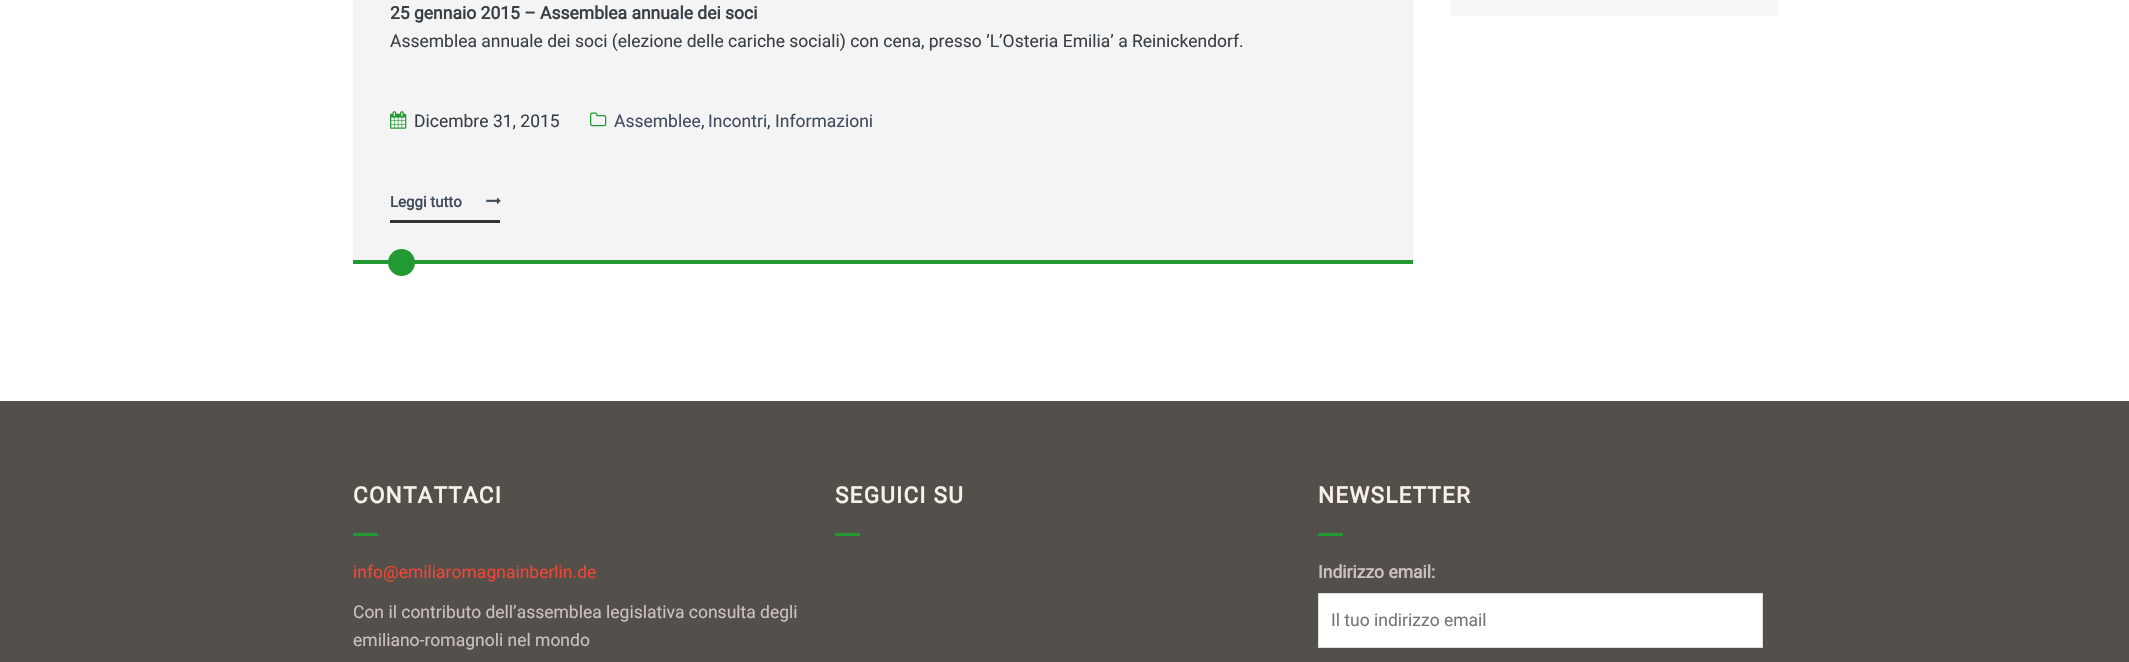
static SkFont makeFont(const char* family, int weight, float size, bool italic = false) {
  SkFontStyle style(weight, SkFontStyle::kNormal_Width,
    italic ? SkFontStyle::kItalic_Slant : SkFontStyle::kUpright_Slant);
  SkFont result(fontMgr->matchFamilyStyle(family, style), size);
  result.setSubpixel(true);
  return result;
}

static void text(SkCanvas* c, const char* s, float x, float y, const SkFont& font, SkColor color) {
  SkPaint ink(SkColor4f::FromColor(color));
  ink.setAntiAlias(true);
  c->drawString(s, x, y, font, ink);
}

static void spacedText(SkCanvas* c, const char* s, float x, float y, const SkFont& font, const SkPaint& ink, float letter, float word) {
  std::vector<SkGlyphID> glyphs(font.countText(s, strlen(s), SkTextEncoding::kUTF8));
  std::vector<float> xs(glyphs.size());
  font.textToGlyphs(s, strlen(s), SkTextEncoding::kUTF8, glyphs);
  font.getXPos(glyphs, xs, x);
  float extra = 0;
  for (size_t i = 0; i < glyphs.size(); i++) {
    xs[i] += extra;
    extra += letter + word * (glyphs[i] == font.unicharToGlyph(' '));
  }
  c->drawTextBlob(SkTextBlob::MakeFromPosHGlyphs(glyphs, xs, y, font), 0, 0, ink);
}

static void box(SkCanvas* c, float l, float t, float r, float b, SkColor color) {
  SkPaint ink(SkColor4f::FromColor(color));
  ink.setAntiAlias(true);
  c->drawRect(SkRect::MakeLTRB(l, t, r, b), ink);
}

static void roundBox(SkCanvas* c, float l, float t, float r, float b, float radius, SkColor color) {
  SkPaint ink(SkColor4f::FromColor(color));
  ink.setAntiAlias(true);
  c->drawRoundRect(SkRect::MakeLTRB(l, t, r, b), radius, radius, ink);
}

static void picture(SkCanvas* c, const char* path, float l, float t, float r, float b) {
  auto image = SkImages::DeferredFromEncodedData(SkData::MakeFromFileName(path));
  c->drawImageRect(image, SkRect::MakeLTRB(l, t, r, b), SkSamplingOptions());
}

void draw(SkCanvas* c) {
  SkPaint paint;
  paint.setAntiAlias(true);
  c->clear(0xffffffff);
  box(c, 353, 0, 1413, 260, 0xfff4f4f4);
  box(c, 353, 260, 1413, 264, 0xff229933);
  SkFont face1 = makeFont("Roboto", 700, 17.5f);
  text(c, "25 gennaio 2015 – Assemblea annuale dei soci", 390, 19, face1, 0xff384047);
  SkFont face2 = makeFont("Roboto", 400, 17.5f);
  text(c, "Assemblea annuale dei soci (elezione delle cariche sociali) con cena, presso ’L’Osteria Emilia’ a Reinickendorf.", 390, 47, face2, 0xff384047);
  picture(c, "img_01.png", 390, 111, 407, 129);
  text(c, "Dicembre 31, 2015", 414, 127, face2, 0xff384047);
  picture(c, "img_02.png", 590, 112, 607, 127);
  text(c, "Assemblee", 614, 127, face2, 0xff404c5d);
  text(c, ",", 701, 127, face2, 0xff384047);
  text(c, "Incontri", 708, 127, face2, 0xff404c5d);
  text(c, ",", 767, 127, face2, 0xff384047);
  text(c, "Informazioni", 775, 127, face2, 0xff404c5d);
  box(c, 390, 220, 500, 223, 0xff333333);
  SkFont face3 = makeFont("Roboto", 700, 15);
  text(c, "Leggi tutto", 390, 207, face3, 0xff404c5d);
  picture(c, "img_03.png", 486, 197, 501, 204);
  paint.setColor(0xff229933);
  c->drawCircle(401.5f, 262.5f, 13.5f, paint);
  box(c, 1450, 0, 1778, 16, 0xfff7f7f7);
  box(c, 0, 401, 2129, 662, 0xff53504c);
  SkFont face4 = makeFont("Roboto", 700, 22.5f);
  paint.setColor(0xfff9f1e6);
  spacedText(c, "CONTATTACI", 353, 503, face4, paint, 1.25f, 0);
  roundBox(c, 353, 533, 378, 536, 1.5f, 0xff229933);
  text(c, "info@emiliaromagnainberlin.de", 353, 578, face2, 0xfff44433);
  text(c, "Con il contributo dell’assemblea legislativa consulta degli", 353, 618, face2, 0xffccc0c0);
  text(c, "emiliano-romagnoli nel mondo", 353, 646, face2, 0xffccc0c0);
  spacedText(c, "SEGUICI SU", 835, 503, face4, paint, 1.25f, 0);
  roundBox(c, 835, 533, 860, 536, 1.5f, 0xff229933);
  spacedText(c, "NEWSLETTER", 1318, 503, face4, paint, 1.25f, 0);
  roundBox(c, 1318, 533, 1343, 536, 1.5f, 0xff229933);
  text(c, "Indirizzo email:", 1318, 578, face1, 0xffccc0c0);
  paint.setColor(0xffffffff);
  c->drawRect(SkRect::MakeLTRB(1318.5f, 593.5f, 1762.5f, 647.5f), paint);
  paint.setStyle(SkPaint::kStroke_Style);
  paint.setStrokeWidth(1);
  paint.setColor(0xffdddddd);
  c->drawRect(SkRect::MakeLTRB(1318.5f, 593.5f, 1762.5f, 647.5f), paint);
  text(c, "Il tuo indirizzo email", 1331, 626, face2, 0xff757575);
}
